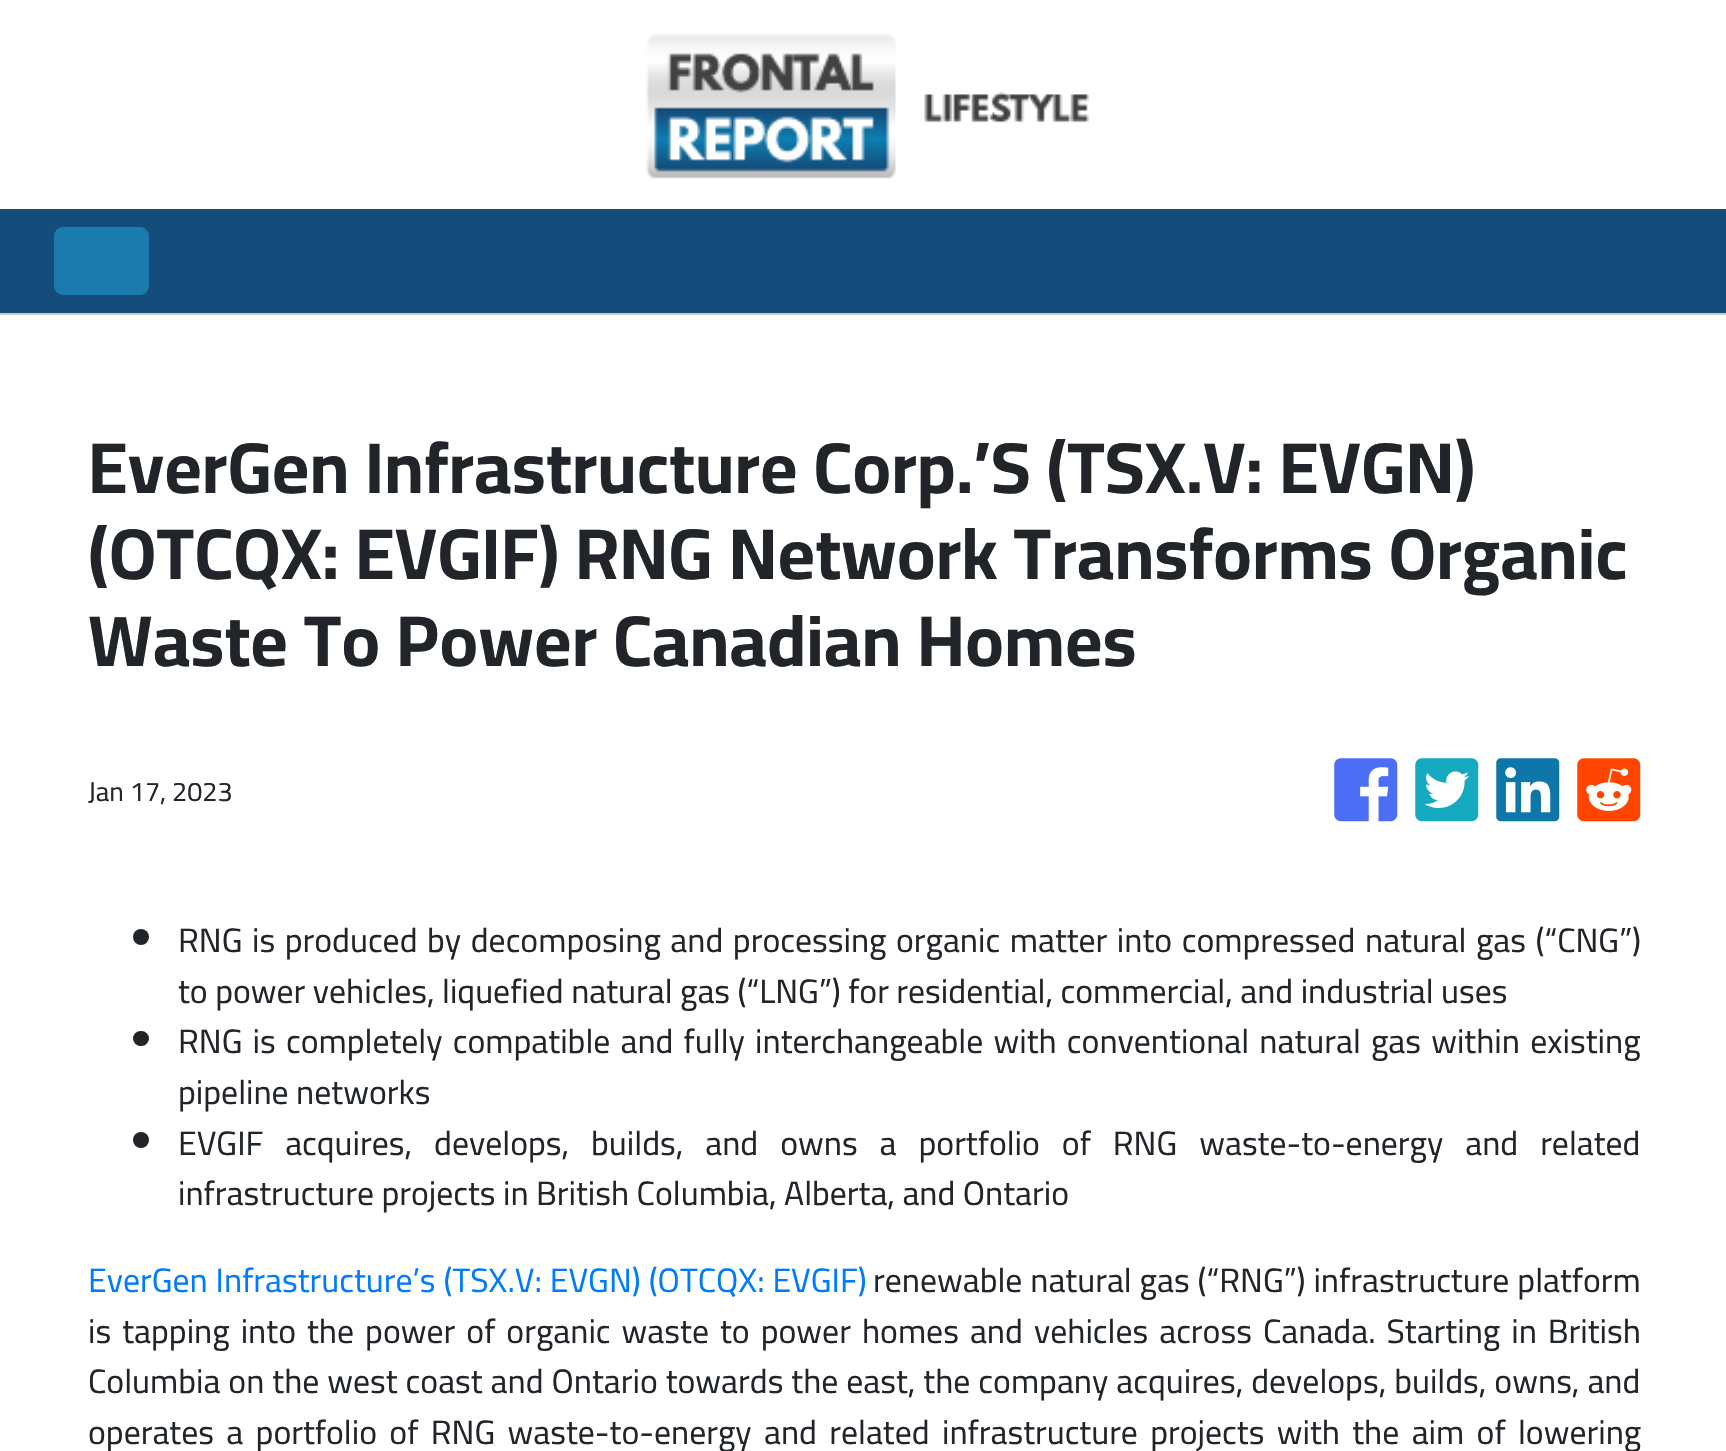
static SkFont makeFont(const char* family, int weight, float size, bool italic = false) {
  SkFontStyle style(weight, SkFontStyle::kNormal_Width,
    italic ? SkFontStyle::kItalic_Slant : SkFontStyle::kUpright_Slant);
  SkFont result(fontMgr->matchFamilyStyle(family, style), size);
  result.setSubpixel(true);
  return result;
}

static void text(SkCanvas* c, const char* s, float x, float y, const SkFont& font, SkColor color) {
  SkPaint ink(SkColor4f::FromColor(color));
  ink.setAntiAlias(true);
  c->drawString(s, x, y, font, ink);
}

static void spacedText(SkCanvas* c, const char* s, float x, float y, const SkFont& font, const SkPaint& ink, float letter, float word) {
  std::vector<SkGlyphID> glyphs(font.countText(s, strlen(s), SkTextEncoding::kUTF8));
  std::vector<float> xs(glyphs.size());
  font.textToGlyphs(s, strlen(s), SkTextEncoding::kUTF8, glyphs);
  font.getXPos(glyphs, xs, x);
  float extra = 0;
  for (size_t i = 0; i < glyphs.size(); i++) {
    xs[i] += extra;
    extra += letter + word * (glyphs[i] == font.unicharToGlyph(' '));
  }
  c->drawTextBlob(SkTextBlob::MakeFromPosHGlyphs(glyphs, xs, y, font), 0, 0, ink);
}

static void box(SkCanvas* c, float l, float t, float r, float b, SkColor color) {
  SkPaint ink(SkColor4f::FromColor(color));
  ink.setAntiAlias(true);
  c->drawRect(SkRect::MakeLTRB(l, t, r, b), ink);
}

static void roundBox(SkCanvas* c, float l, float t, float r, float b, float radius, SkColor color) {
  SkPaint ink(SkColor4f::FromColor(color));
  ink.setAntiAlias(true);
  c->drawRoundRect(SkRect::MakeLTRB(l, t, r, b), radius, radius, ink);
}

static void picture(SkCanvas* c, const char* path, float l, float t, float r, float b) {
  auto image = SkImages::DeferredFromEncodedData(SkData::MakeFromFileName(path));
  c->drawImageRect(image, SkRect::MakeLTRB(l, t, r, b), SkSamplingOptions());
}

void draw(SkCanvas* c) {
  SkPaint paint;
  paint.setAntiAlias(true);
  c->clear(0xffffffff);
  picture(c, "img_01.png", 645, 33, 1089, 179);
  box(c, 0, 209, 1726, 313, 0xff144d7b);
  box(c, 0, 313, 1726, 315, 0xffcacaca);
  roundBox(c, 54, 227, 149, 295, 9, 0xff1c7bad);
  SkFont face1 = makeFont("Cairo", 700, 72);
  text(c, "EverGen Infrastructure Corp.’S (TSX.V: EVGN)", 88, 493, face1, 0xff212529);
  text(c, "(OTCQX: EVGIF) RNG Network Transforms Organic", 88, 579, face1, 0xff212529);
  text(c, "Waste To Power Canadian Homes", 88, 666, face1, 0xff212529);
  SkFont face2 = makeFont("Cairo", 400, 27);
  text(c, "Jan 17, 2023", 88, 801, face2, 0xff212529);
  picture(c, "img_02.png", 1334, 758, 1398, 822);
  picture(c, "img_03.png", 1415, 758, 1479, 822);
  picture(c, "img_04.png", 1496, 758, 1560, 822);
  picture(c, "img_05.png", 1577, 758, 1641, 822);
  paint.setColor(0xff212529);
  c->drawCircle(141, 937, 8, paint);
  SkFont face3 = makeFont("Cairo", 400, 33.75f);
  spacedText(c, "RNG is produced by decomposing and processing organic matter into compressed natural gas (“CNG”)", 178, 952, face3, paint, 0, 2.1f);
  text(c, "to power vehicles, liquefied natural gas (“LNG”) for residential, commercial, and industrial uses", 178, 1003, face3, 0xff212529);
  roundBox(c, 133, 1031, 149, 1046, 7.5f, 0xff212529);
  spacedText(c, "RNG is completely compatible and fully interchangeable with conventional natural gas within existing", 178, 1053, face3, paint, 0, 2.75f);
  text(c, "pipeline networks", 178, 1104, face3, 0xff212529);
  c->drawCircle(141, 1140, 8, paint);
  spacedText(c, "EVGIF acquires, develops, builds, and owns a portfolio of RNG waste-to-energy and related", 178, 1155, face3, paint, 0, 14.5f);
  text(c, "infrastructure projects in British Columbia, Alberta, and Ontario", 178, 1205, face3, 0xff212529);
  paint.setColor(0xff007bff);
  spacedText(c, "EverGen Infrastructure’s (TSX.V: EVGN) (OTCQX: EVGIF)", 88, 1292, face3, paint, 0, 0.5f);
  paint.setColor(0xff212529);
  spacedText(c, "renewable natural gas (“RNG”) infrastructure platform", 873, 1292, face3, paint, 0, 0.5f);
  spacedText(c, "is tapping into the power of organic waste to power homes and vehicles across Canada. Starting in British", 88, 1343, face3, paint, 0, 3.6f);
  spacedText(c, "Columbia on the west coast and Ontario towards the east, the company acquires, develops, builds, owns, and", 88, 1393, face3, paint, 0, 0.5f);
  spacedText(c, "operates a portfolio of RNG waste-to-energy and related infrastructure projects with the aim of lowering", 88, 1444, face3, paint, 0, 4.9f);
}
